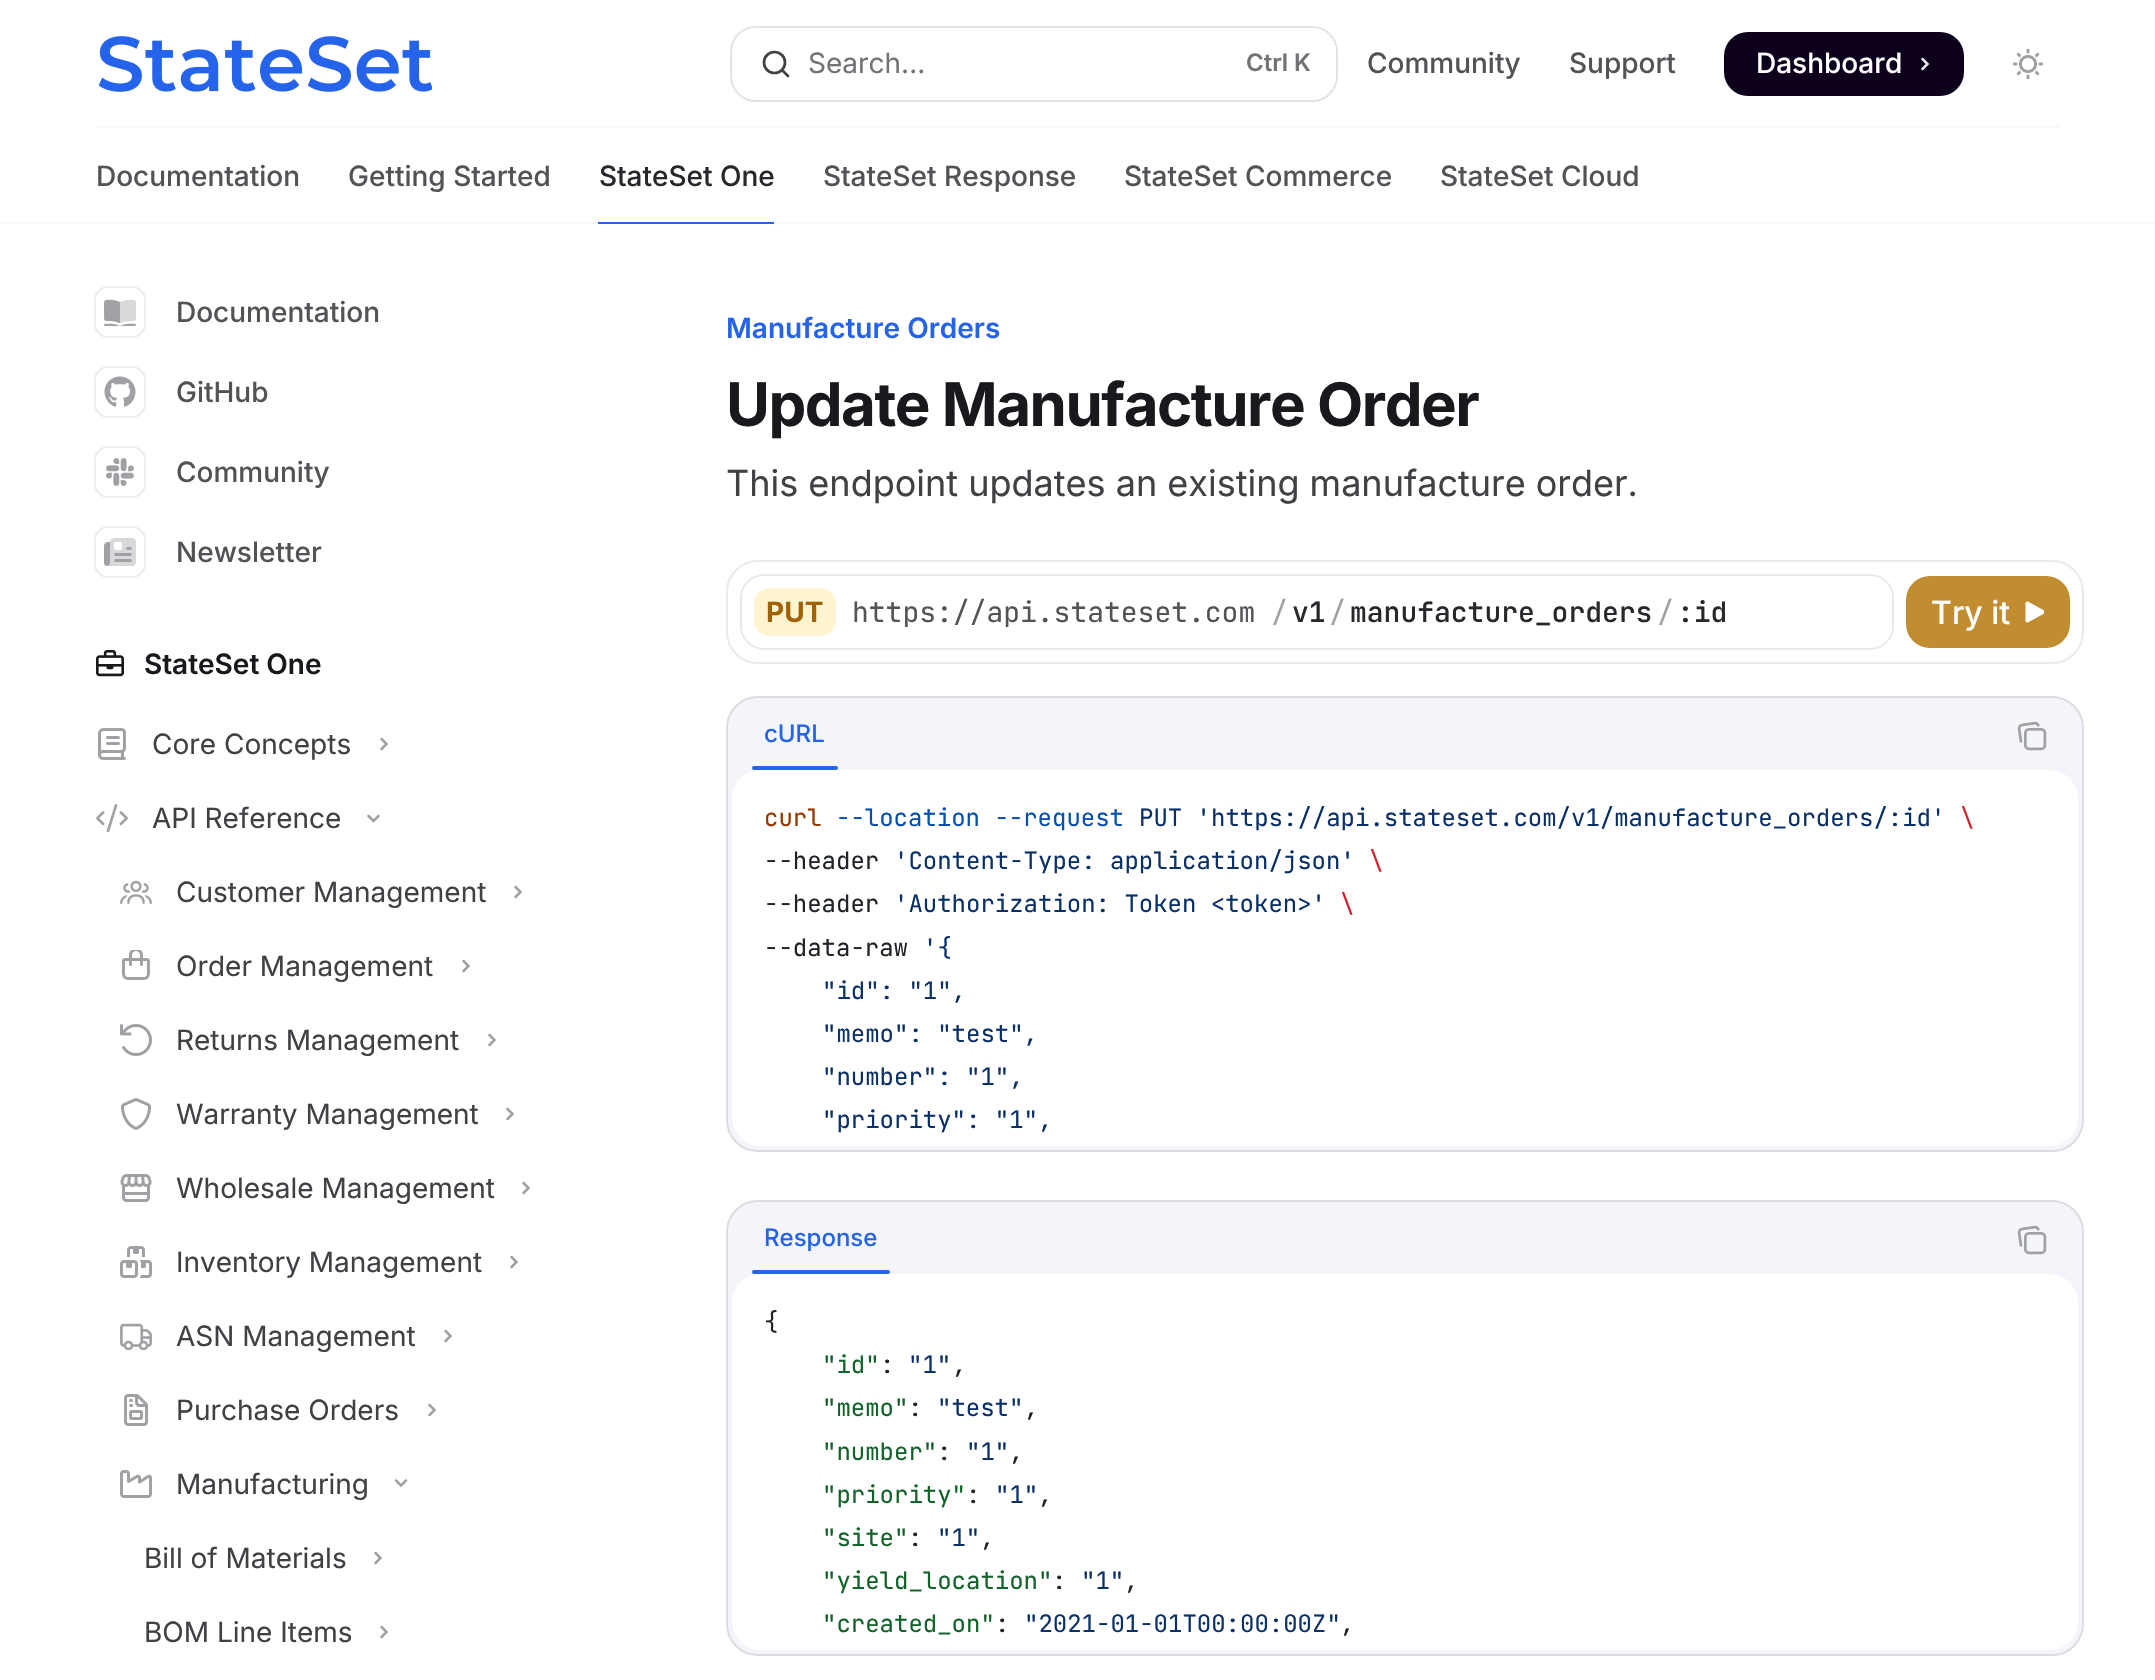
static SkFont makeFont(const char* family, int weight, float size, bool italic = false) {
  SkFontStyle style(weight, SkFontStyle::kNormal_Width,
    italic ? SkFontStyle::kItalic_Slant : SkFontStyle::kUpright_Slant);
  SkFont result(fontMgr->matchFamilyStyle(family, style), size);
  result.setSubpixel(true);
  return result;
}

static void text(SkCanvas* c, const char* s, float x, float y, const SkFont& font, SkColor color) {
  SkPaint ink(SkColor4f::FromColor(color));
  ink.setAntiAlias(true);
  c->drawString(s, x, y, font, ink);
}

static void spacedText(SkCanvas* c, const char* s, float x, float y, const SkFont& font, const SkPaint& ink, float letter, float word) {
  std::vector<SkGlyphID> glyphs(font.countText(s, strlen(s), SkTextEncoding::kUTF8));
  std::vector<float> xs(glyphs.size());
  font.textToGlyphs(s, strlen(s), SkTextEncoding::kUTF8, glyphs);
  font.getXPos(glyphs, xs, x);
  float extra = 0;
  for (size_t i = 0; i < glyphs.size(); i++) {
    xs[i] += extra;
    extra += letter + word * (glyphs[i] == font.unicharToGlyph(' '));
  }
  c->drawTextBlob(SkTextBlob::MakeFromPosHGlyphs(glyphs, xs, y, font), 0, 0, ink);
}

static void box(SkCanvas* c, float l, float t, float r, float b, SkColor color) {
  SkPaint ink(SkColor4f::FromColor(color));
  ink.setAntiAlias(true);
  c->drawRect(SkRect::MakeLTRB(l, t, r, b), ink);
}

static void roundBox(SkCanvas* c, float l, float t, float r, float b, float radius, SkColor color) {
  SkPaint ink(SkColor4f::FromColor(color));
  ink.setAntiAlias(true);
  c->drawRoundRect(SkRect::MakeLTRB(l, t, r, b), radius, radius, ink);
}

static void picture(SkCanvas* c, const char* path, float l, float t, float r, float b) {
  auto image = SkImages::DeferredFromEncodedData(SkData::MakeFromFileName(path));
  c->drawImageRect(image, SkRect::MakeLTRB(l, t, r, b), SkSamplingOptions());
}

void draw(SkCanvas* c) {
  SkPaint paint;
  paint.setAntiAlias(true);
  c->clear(0xffffffff);
  box(c, 96, 126, 2060, 128, 0xfff8f8f8);
  picture(c, "img_01.png", 98, 36, 432, 92);
  paint.setStyle(SkPaint::kStroke_Style);
  paint.setStrokeWidth(2);
  paint.setColor(0xffe2e3e4);
  c->drawRoundRect(SkRect::MakeLTRB(731, 27, 1337, 101), 25, 25, paint);
  roundBox(c, 732, 28, 1336, 100, 24, 0xffffffff);
  paint.setStrokeWidth(2.7f);
  paint.setColor(0xff3f4145);
  c->drawCircle(774.5f, 62.5f, 10.5f, paint);
  paint.setStrokeCap(SkPaint::kRound_Cap);
  paint.setStrokeJoin(SkPaint::kRound_Join);
  c->drawPath(SkPathBuilder().moveTo(788, 76).lineTo(782.5f, 70.5f).detach(), paint);
  SkFont face1 = makeFont("Inter", 400, 28);
  text(c, "Search...", 808, 73, face1, 0xff717377);
  SkFont face2 = makeFont("Inter", 600, 24);
  text(c, "Ctrl K", 1246, 71, face2, 0xff717377);
  SkFont face3 = makeFont("Inter", 500, 28);
  text(c, "Community", 1367, 73, face3, 0xff515357);
  text(c, "Support", 1569, 73, face3, 0xff515357);
  roundBox(c, 1724, 32, 1964, 96, 24, 0xff0d001d);
  text(c, "Dashboard", 1756, 73, face3, 0xffffffff);
  paint.setStrokeWidth(2.5f);
  paint.setStrokeJoin(SkPaint::kMiter_Join);
  paint.setColor(0xffe7e6e8);
  c->drawPath(SkPathBuilder().moveTo(1922.5f, 59).lineTo(1927.5f, 64).lineTo(1922.5f, 69).detach(), paint);
  picture(c, "img_02.png", 2012, 48, 2044, 80);
  text(c, "Documentation", 96, 186, face3, 0xff515357);
  text(c, "Getting Started", 348, 186, face3, 0xff515357);
  text(c, "StateSet One", 599, 186, face3, 0xff26282c);
  box(c, 0, 222, 2155, 224, 0xfff8f8f8);
  box(c, 598, 222, 774, 224, 0xff2563eb);
  text(c, "StateSet Response", 823, 186, face3, 0xff515357);
  text(c, "StateSet Commerce", 1124, 186, face3, 0xff515357);
  text(c, "StateSet Cloud", 1440, 186, face3, 0xff515357);
  paint.setStrokeWidth(2);
  paint.setStrokeCap(SkPaint::kButt_Cap);
  paint.setColor(0xffeeeeee);
  c->drawRoundRect(SkRect::MakeLTRB(95, 287, 145, 337), 13, 13, paint);
  picture(c, "img_03.png", 104, 299, 136, 326);
  text(c, "Documentation", 176, 322, face3, 0xff515357);
  c->drawRoundRect(SkRect::MakeLTRB(95, 367, 145, 417), 13, 13, paint);
  picture(c, "img_04.png", 104, 376, 136, 407);
  text(c, "GitHub", 176, 402, face3, 0xff515357);
  c->drawRoundRect(SkRect::MakeLTRB(95, 447, 145, 497), 13, 13, paint);
  picture(c, "img_05.png", 106, 458, 134, 486);
  text(c, "Community", 176, 482, face3, 0xff515357);
  c->drawRoundRect(SkRect::MakeLTRB(95, 527, 145, 577), 13, 13, paint);
  picture(c, "img_06.png", 104, 538, 136, 566);
  text(c, "Newsletter", 176, 562, face3, 0xff515357);
  picture(c, "img_07.png", 96, 650, 124, 677);
  SkFont face4 = makeFont("Inter", 600, 28);
  text(c, "StateSet One", 144, 674, face4, 0xff17191d);
  picture(c, "img_08.png", 98, 728, 126, 760);
  text(c, "Core Concepts", 152, 754, face1, 0xff3f4145);
  paint.setStrokeWidth(2.5f);
  paint.setStrokeCap(SkPaint::kRound_Cap);
  paint.setColor(0xff9fa1a5);
  c->drawPath(SkPathBuilder().moveTo(381.5f, 739).lineTo(386.5f, 744).lineTo(381.5f, 749).detach(), paint);
  picture(c, "img_09.png", 96, 804, 128, 832);
  text(c, "API Reference", 152, 828, face1, 0xff3f4145);
  c->drawPath(SkPathBuilder().moveTo(378.5f, 816).lineTo(373.5f, 821).lineTo(368.5f, 816).detach(), paint);
  picture(c, "img_10.png", 120, 880, 152, 904);
  text(c, "Customer Management", 176, 902, face1, 0xff3f4145);
  c->drawPath(SkPathBuilder().moveTo(515.5f, 887).lineTo(520.5f, 892).lineTo(515.5f, 897).detach(), paint);
  picture(c, "img_11.png", 122, 950, 150, 980);
  text(c, "Order Management", 176, 976, face1, 0xff3f4145);
  c->drawPath(SkPathBuilder().moveTo(463.5f, 961).lineTo(468.5f, 966).lineTo(463.5f, 971).detach(), paint);
  picture(c, "img_12.png", 120, 1024, 152, 1056);
  text(c, "Returns Management", 176, 1050, face1, 0xff3f4145);
  c->drawPath(SkPathBuilder().moveTo(489.5f, 1035).lineTo(494.5f, 1040).lineTo(489.5f, 1045).detach(), paint);
  picture(c, "img_13.png", 121, 1098, 151, 1130);
  text(c, "Warranty Management", 176, 1124, face1, 0xff3f4145);
  c->drawPath(SkPathBuilder().moveTo(507.5f, 1109).lineTo(512.5f, 1114).lineTo(507.5f, 1119).detach(), paint);
  picture(c, "img_14.png", 120, 1174, 152, 1202);
  text(c, "Wholesale Management", 176, 1198, face1, 0xff3f4145);
  c->drawPath(SkPathBuilder().moveTo(523.5f, 1183).lineTo(528.5f, 1188).lineTo(523.5f, 1193).detach(), paint);
  picture(c, "img_15.png", 120, 1246, 152, 1278);
  text(c, "Inventory Management", 176, 1272, face1, 0xff3f4145);
  c->drawPath(SkPathBuilder().moveTo(511.5f, 1257).lineTo(516.5f, 1262).lineTo(511.5f, 1267).detach(), paint);
  picture(c, "img_16.png", 120, 1323, 152, 1350);
  text(c, "ASN Management", 176, 1346, face1, 0xff3f4145);
  c->drawPath(SkPathBuilder().moveTo(445.5f, 1331).lineTo(450.5f, 1336).lineTo(445.5f, 1341).detach(), paint);
  picture(c, "img_17.png", 124, 1394, 148, 1426);
  text(c, "Purchase Orders", 176, 1420, face1, 0xff3f4145);
  c->drawPath(SkPathBuilder().moveTo(429.5f, 1405).lineTo(434.5f, 1410).lineTo(429.5f, 1415).detach(), paint);
  picture(c, "img_18.png", 120, 1470, 152, 1498);
  text(c, "Manufacturing", 176, 1494, face1, 0xff3f4145);
  c->drawPath(SkPathBuilder().moveTo(406, 1480.5f).lineTo(401, 1485.5f).lineTo(396, 1480.5f).detach(), paint);
  text(c, "Bill of Materials", 144, 1568, face1, 0xff3f4145);
  c->drawPath(SkPathBuilder().moveTo(375.5f, 1553).lineTo(380.5f, 1558).lineTo(375.5f, 1563).detach(), paint);
  text(c, "BOM Line Items", 144, 1642, face1, 0xff3f4145);
  c->drawPath(SkPathBuilder().moveTo(381.5f, 1627).lineTo(386.5f, 1632).lineTo(381.5f, 1637).detach(), paint);
  text(c, "Manufacture Orders", 726, 338, face4, 0xff2563eb);
  SkFont face5 = makeFont("Inter", 700, 60);
  paint.setStyle(SkPaint::kFill_Style);
  paint.setColor(0xff17191d);
  spacedText(c, "Update Manufacture Order", 726, 426, face5, paint, -1.5f, 0);
  SkFont face6 = makeFont("Inter", 400, 36);
  text(c, "This endpoint updates an existing manufacture order.", 726, 496, face6, 0xff3f4145);
  paint.setStyle(SkPaint::kStroke_Style);
  paint.setStrokeWidth(2);
  paint.setStrokeCap(SkPaint::kButt_Cap);
  paint.setColor(0xffe9eaed);
  c->drawRoundRect(SkRect::MakeLTRB(727, 561, 2083, 663), 31, 31, paint);
  c->drawRoundRect(SkRect::MakeLTRB(741, 575, 1893, 649), 23, 23, paint);
  roundBox(c, 754, 588, 836, 636, 16, 0xfffef5d0);
  SkFont face7 = makeFont("Inter", 700, 28);
  text(c, "PUT", 766, 622, face7, 0xffa16207);
  SkFont face8 = makeFont("JetBrains Mono", 400, 28);
  text(c, "https://api.stateset.com", 852, 622, face8, 0xff515357);
  text(c, "/", 1271, 622, face8, 0xff9fa1a5);
  SkFont face9 = makeFont("JetBrains Mono", 500, 28);
  text(c, "v1", 1292, 622, face9, 0xff26282c);
  text(c, "/", 1329, 622, face8, 0xff9fa1a5);
  text(c, "manufacture_orders", 1350, 622, face9, 0xff26282c);
  text(c, "/", 1657, 622, face8, 0xff9fa1a5);
  text(c, ":id", 1677, 622, face9, 0xff26282c);
  roundBox(c, 1906, 576, 2070, 648, 24, 0xffc28c30);
  SkFont face10 = makeFont("Inter", 500, 32);
  text(c, "Try it", 1931, 624, face10, 0xffffffff);
  picture(c, "img_19.png", 2025, 601, 2044, 623);
  roundBox(c, 726, 696, 2084, 1152, 32, 0xfff3f5fa);
  paint.setColor(0x1a0b0d11);
  c->drawRoundRect(SkRect::MakeLTRB(727, 697, 2083, 1151), 31, 31, paint);
  SkFont face11 = makeFont("Inter", 500, 24);
  text(c, "cURL", 764, 742, face11, 0xff2563eb);
  roundBox(c, 752, 766, 838, 770, 2, 0xff2563eb);
  picture(c, "img_20.png", 2017, 721, 2047, 751);
  roundBox(c, 732, 770, 2078, 1146, 28, 0xffffffff);
  SkFont face12 = makeFont("JetBrains Mono", 400, 24);
  text(c, "curl", 764, 826, face12, 0xff953800);
  text(c, "--location --request", 836, 826, face12, 0xff0550ae);
  text(c, "PUT 'https://api.stateset.com/v1/manufacture_orders/:id'", 1139, 826, face12, 0xff0a3069);
  text(c, "\\", 1960, 826, face12, 0xffcf222e);
  text(c, "--header", 764, 869, face12, 0xff1f2328);
  text(c, "'Content-Type: application/json'", 894, 869, face12, 0xff0a3069);
  text(c, "\\", 1369, 869, face12, 0xffcf222e);
  text(c, "--header", 764, 912, face12, 0xff1f2328);
  text(c, "'Authorization: Token <token>'", 894, 912, face12, 0xff0a3069);
  text(c, "\\", 1340, 912, face12, 0xffcf222e);
  text(c, "--data-raw", 764, 956, face12, 0xff1f2328);
  text(c, "'{", 923, 956, face12, 0xff0a3069);
  text(c, "\"id\": \"1\",", 822, 999, face12, 0xff0a3069);
  text(c, "\"memo\": \"test\",", 822, 1042, face12, 0xff0a3069);
  text(c, "\"number\": \"1\",", 822, 1085, face12, 0xff0a3069);
  text(c, "\"priority\": \"1\",", 822, 1128, face12, 0xff0a3069);
  roundBox(c, 726, 1200, 2084, 1656, 32, 0xfff3f5fa);
  c->drawRoundRect(SkRect::MakeLTRB(727, 1201, 2083, 1655), 31, 31, paint);
  text(c, "Response", 764, 1246, face11, 0xff2563eb);
  roundBox(c, 752, 1270, 890, 1274, 2, 0xff2563eb);
  picture(c, "img_20.png", 2017, 1225, 2047, 1255);
  roundBox(c, 732, 1274, 2078, 1650, 28, 0xffffffff);
  text(c, "{", 764, 1330, face12, 0xff1f2328);
  text(c, "\"id\"", 822, 1373, face12, 0xff116329);
  text(c, ":", 880, 1373, face12, 0xff1f2328);
  text(c, "\"1\"", 908, 1373, face12, 0xff0a3069);
  text(c, ",", 952, 1373, face12, 0xff1f2328);
  text(c, "\"memo\"", 822, 1416, face12, 0xff116329);
  text(c, ":", 908, 1416, face12, 0xff1f2328);
  text(c, "\"test\"", 937, 1416, face12, 0xff0a3069);
  text(c, ",", 1024, 1416, face12, 0xff1f2328);
  text(c, "\"number\"", 822, 1460, face12, 0xff116329);
  text(c, ":", 937, 1460, face12, 0xff1f2328);
  text(c, "\"1\"", 966, 1460, face12, 0xff0a3069);
  text(c, ",", 1009, 1460, face12, 0xff1f2328);
  text(c, "\"priority\"", 822, 1503, face12, 0xff116329);
  text(c, ":", 966, 1503, face12, 0xff1f2328);
  text(c, "\"1\"", 995, 1503, face12, 0xff0a3069);
  text(c, ",", 1038, 1503, face12, 0xff1f2328);
  text(c, "\"site\"", 822, 1546, face12, 0xff116329);
  text(c, ":", 908, 1546, face12, 0xff1f2328);
  text(c, "\"1\"", 937, 1546, face12, 0xff0a3069);
  text(c, ",", 980, 1546, face12, 0xff1f2328);
  text(c, "\"yield_location\"", 822, 1589, face12, 0xff116329);
  text(c, ":", 1052, 1589, face12, 0xff1f2328);
  text(c, "\"1\"", 1081, 1589, face12, 0xff0a3069);
  text(c, ",", 1124, 1589, face12, 0xff1f2328);
  text(c, "\"created_on\"", 822, 1632, face12, 0xff116329);
  text(c, ":", 995, 1632, face12, 0xff1f2328);
  text(c, "\"2021-01-01T00:00:00Z\"", 1024, 1632, face12, 0xff0a3069);
  text(c, ",", 1340, 1632, face12, 0xff1f2328);
}
